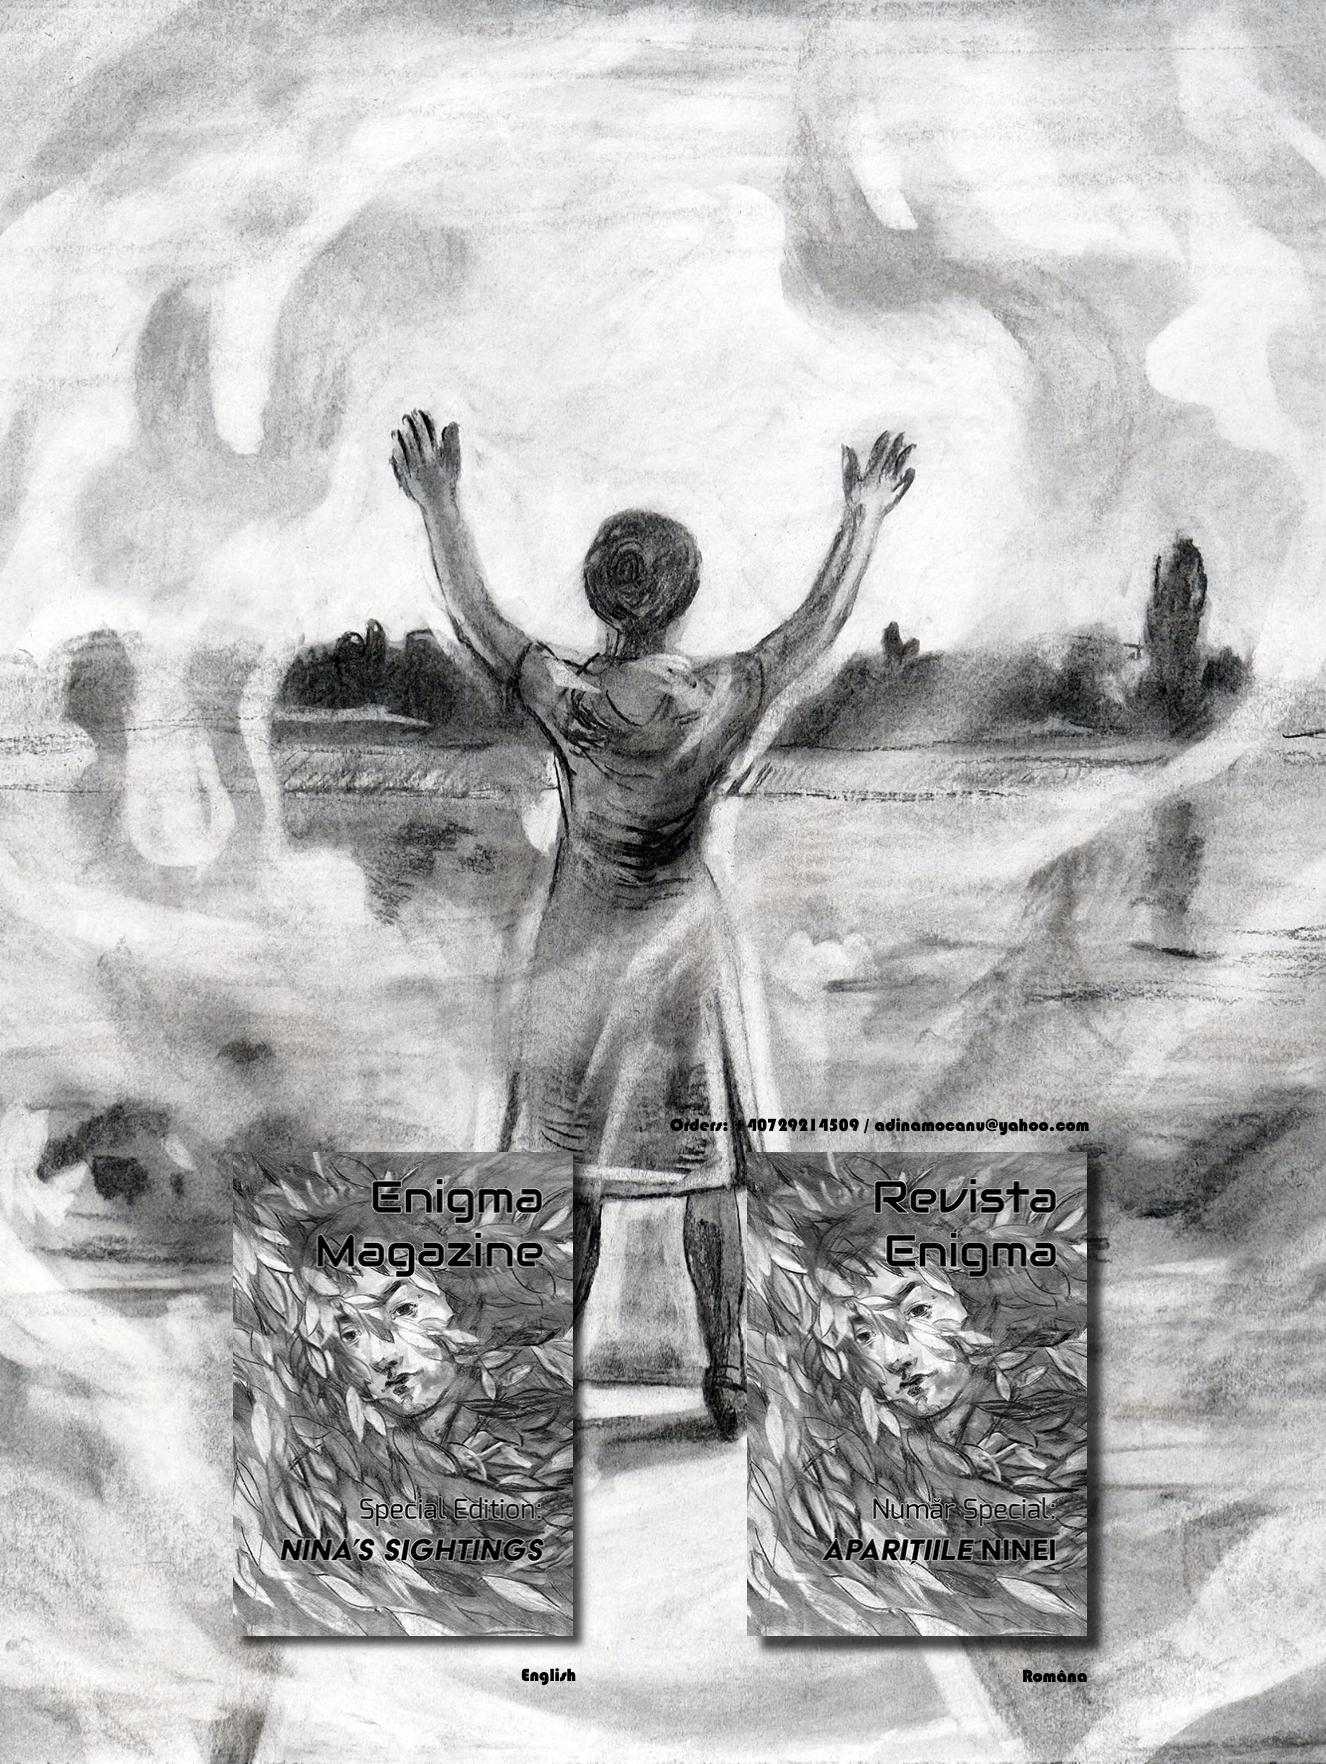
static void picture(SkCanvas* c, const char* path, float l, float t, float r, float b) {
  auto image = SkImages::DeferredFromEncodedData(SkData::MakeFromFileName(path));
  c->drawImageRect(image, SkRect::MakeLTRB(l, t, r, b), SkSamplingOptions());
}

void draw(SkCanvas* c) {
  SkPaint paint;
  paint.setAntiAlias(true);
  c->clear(0xffffffff);
  picture(c, "img_01.png", 0, 0, 1326, 1764);
  paint.setColor(0xb3000000);
  paint.setMaskFilter(SkMaskFilter::MakeBlur(kNormal_SkBlurStyle, 4));
  c->drawRect(SkRect::MakeLTRB(242, 1161, 582, 1645), paint);
  paint.setMaskFilter(nullptr);
  picture(c, "img_02.png", 233, 1152, 573, 1636);
  picture(c, "img_03.png", 670, 1118, 1089, 1136);
  paint.setMaskFilter(SkMaskFilter::MakeBlur(kNormal_SkBlurStyle, 4));
  c->drawRect(SkRect::MakeLTRB(761, 1166, 1101, 1650), paint);
  paint.setMaskFilter(nullptr);
  picture(c, "img_04.png", 747, 1152, 1087, 1636);
  picture(c, "img_05.png", 521, 1668, 576, 1686);
  picture(c, "img_06.png", 1023, 1669, 1087, 1683);
}
